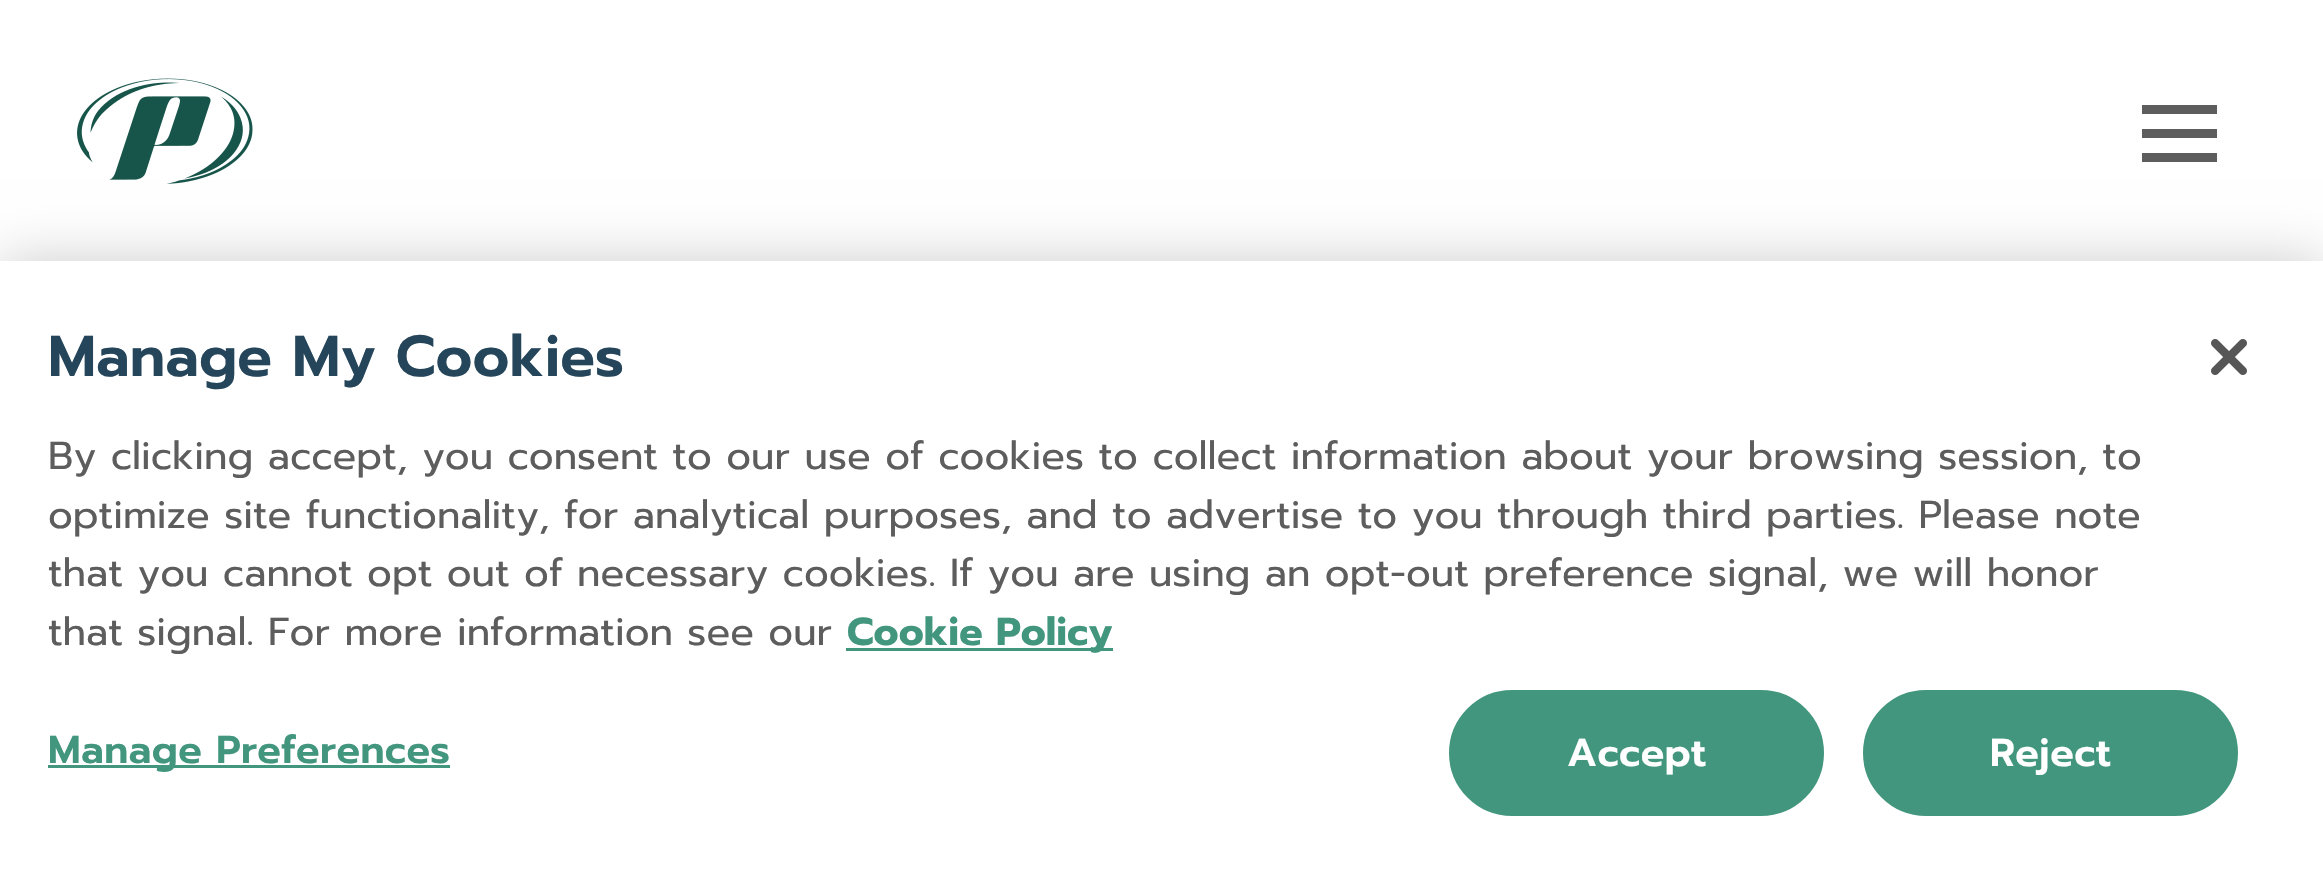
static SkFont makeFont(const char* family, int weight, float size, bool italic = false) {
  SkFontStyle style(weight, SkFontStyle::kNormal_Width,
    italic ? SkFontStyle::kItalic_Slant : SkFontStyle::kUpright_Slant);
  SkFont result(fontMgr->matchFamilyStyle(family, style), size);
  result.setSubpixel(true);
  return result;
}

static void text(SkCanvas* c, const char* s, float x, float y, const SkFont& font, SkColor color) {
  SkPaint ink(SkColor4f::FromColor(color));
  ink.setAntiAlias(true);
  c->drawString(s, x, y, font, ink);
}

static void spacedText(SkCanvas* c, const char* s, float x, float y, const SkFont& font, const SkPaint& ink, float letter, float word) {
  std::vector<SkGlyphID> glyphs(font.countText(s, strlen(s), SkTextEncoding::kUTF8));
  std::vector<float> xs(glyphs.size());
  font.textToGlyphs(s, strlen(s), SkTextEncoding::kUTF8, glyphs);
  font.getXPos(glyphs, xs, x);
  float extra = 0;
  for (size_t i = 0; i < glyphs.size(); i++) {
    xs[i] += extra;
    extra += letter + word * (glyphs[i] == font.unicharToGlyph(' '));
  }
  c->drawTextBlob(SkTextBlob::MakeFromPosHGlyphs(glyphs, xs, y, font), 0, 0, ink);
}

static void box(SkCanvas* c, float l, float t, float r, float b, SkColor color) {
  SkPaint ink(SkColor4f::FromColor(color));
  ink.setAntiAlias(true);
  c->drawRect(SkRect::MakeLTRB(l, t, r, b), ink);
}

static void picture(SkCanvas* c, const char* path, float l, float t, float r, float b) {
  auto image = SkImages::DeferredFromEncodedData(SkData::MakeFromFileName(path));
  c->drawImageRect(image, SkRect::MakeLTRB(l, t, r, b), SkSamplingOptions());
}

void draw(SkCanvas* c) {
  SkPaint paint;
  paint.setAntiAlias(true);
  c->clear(0xffffffff);
  picture(c, "img_01.png", 77, 78, 253, 184);
  box(c, 2142, 105, 2217, 114, 0xff5d5d5d);
  box(c, 2142, 129, 2217, 138, 0xff5d5d5d);
  box(c, 2142, 153, 2217, 162, 0xff5d5d5d);
  paint.setColor(0x33000000);
  paint.setMaskFilter(SkMaskFilter::MakeBlur(kNormal_SkBlurStyle, 27));
  c->drawRect(SkRect::MakeLTRB(0, 261, 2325, 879), paint);
  paint.setMaskFilter(nullptr);
  box(c, 0, 261, 2323, 878, 0xffffffff);
  SkFont face1 = makeFont("Prompt", 600, 57.6f);
  text(c, "Manage My Cookies", 48, 376, face1, 0xff25455a);
  SkFont face2 = makeFont("Prompt", 400, 39.02f);
  text(c, "By clicking accept, you consent to our use of cookies to collect information about your browsing session, to", 48, 469, face2, 0xff5d5d5d);
  text(c, "optimize site functionality, for analytical purposes, and to advertise to you through third parties. Please note", 48, 528, face2, 0xff5d5d5d);
  text(c, "that you cannot opt out of necessary cookies. If you are using an opt-out preference signal, we will honor", 48, 586, face2, 0xff5d5d5d);
  text(c, "that signal. For more information see our", 48, 645, face2, 0xff5d5d5d);
  box(c, 846, 648, 1113, 651, 0xff42967d);
  SkFont face3 = makeFont("Prompt", 700, 39.02f);
  text(c, "Cookie Policy", 847, 645, face3, 0xff42967d);
  box(c, 48, 765, 450, 768, 0xff42967d);
  SkFont face4 = makeFont("Prompt", 600, 39.02f);
  paint.setColor(0xff42967d);
  spacedText(c, "Manage Preferences", 48, 763, face4, paint, 0.4f, 0);
  c->drawRoundRect(SkRect::MakeLTRB(1450.5f, 691.5f, 1822.5f, 814.5f), 61.5f, 61.5f, paint);
  paint.setStyle(SkPaint::kStroke_Style);
  paint.setStrokeWidth(3);
  c->drawRoundRect(SkRect::MakeLTRB(1450.5f, 691.5f, 1822.5f, 814.5f), 61.5f, 61.5f, paint);
  paint.setStyle(SkPaint::kFill_Style);
  paint.setColor(0xffffffff);
  spacedText(c, "Accept", 1567, 766, face4, paint, 0.4f, 0);
  paint.setColor(0xff42967d);
  c->drawRoundRect(SkRect::MakeLTRB(1864.5f, 691.5f, 2236.5f, 814.5f), 61.5f, 61.5f, paint);
  paint.setStyle(SkPaint::kStroke_Style);
  c->drawRoundRect(SkRect::MakeLTRB(1864.5f, 691.5f, 2236.5f, 814.5f), 61.5f, 61.5f, paint);
  paint.setStyle(SkPaint::kFill_Style);
  paint.setColor(0xffffffff);
  spacedText(c, "Reject", 1990, 766, face4, paint, 0.4f, 0);
  picture(c, "img_02.png", 2211, 339, 2247, 375);
}
